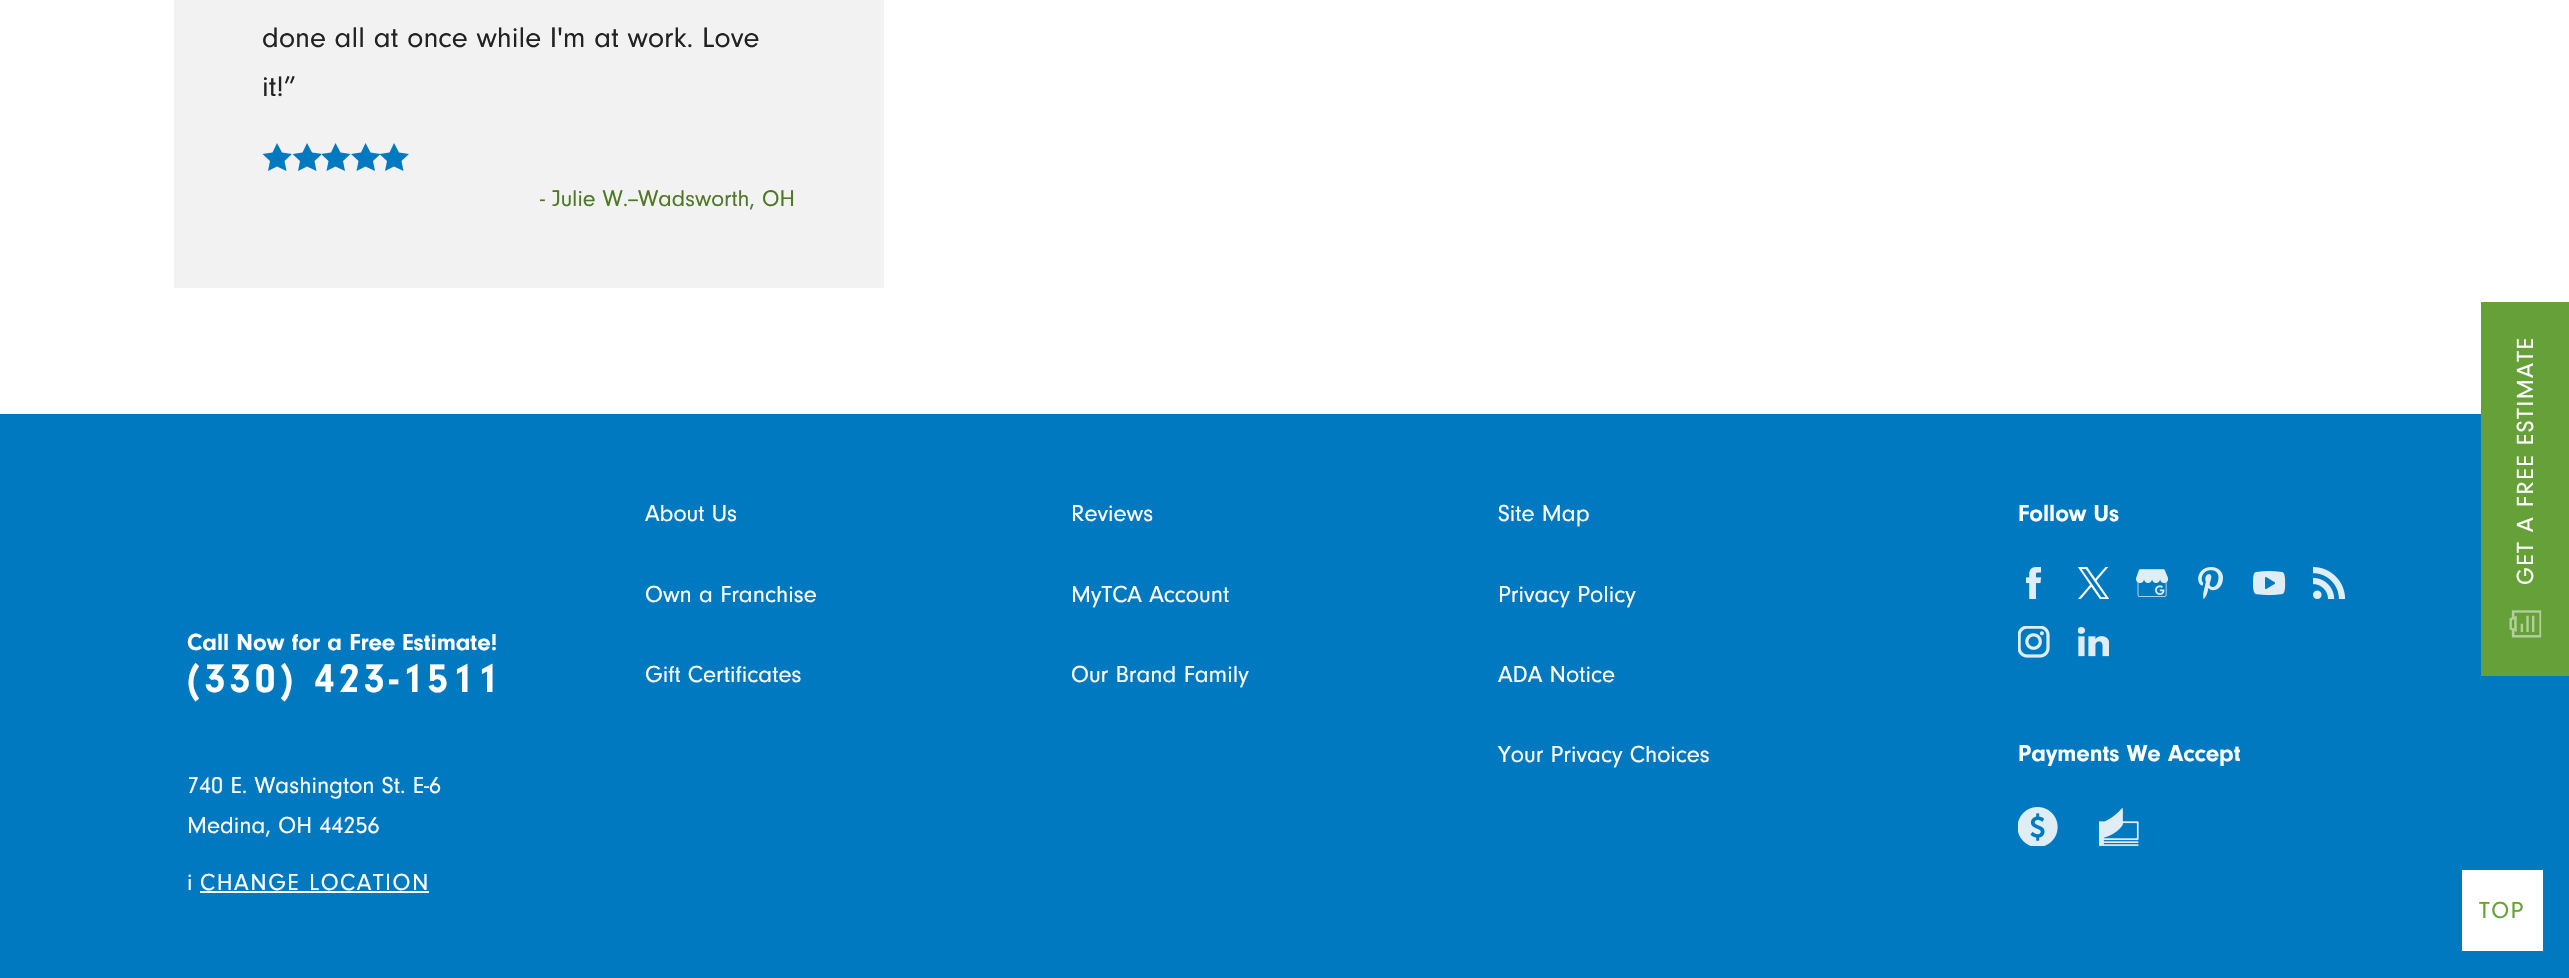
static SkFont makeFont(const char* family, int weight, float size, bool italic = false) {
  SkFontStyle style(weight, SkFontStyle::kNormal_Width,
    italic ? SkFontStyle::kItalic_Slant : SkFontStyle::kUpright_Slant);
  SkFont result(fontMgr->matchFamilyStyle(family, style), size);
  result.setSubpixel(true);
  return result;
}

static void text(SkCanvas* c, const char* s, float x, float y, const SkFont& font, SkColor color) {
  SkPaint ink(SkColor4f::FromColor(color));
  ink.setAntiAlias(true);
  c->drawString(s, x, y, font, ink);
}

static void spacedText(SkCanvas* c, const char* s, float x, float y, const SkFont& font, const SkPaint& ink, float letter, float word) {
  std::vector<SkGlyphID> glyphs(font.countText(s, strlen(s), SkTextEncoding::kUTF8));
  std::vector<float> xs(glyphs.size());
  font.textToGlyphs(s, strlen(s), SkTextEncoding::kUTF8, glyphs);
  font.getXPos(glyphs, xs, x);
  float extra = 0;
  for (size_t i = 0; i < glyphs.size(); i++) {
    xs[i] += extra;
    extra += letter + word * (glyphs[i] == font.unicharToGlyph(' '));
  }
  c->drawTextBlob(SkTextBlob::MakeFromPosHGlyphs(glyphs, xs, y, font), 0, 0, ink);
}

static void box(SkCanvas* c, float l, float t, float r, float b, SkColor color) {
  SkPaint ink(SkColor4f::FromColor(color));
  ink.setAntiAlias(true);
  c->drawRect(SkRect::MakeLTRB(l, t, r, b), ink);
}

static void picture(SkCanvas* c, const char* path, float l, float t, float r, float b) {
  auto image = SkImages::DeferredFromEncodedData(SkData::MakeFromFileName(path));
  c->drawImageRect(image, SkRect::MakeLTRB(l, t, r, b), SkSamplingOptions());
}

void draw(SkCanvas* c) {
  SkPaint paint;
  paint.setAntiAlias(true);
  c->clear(0xffffffff);
  box(c, 174, 0, 884, 288, 0xfff2f2f2);
  SkFont face1 = makeFont("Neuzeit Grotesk", 400, 29.4f);
  text(c, "done all at once while I'm at work. Love", 262, 47, face1, 0xff222222);
  text(c, "it!”", 262, 96, face1, 0xff222222);
  paint.setColor(0xff0079c1);
  c->drawPath(SkPathBuilder().moveTo(292, 154).lineTo(282, 152.5f).lineTo(277, 143).lineTo(272.5f, 152.5f).lineTo(262.5f, 154).lineTo(270, 161).lineTo(268, 171).lineTo(277, 166.5f).lineTo(286.5f, 171).lineTo(284.5f, 161).close().detach(), paint);
  c->save();
  c->clipRect(SkRect::MakeLTRB(293, 143, 321, 171));
  c->drawPath(SkPathBuilder().moveTo(322, 154).lineTo(312, 152.5f).lineTo(307, 143).lineTo(302.5f, 152.5f).lineTo(292.5f, 154).lineTo(300, 161).lineTo(298, 171).lineTo(307, 166.5f).lineTo(316.5f, 171).lineTo(314.5f, 161).close().detach(), paint);
  c->restore();
  c->drawPath(SkPathBuilder().moveTo(350.5f, 154).lineTo(340.5f, 152.5f).lineTo(335.5f, 143).lineTo(331, 152.5f).lineTo(321, 154).lineTo(328.5f, 161).lineTo(326.5f, 171).lineTo(335.5f, 166.5f).lineTo(345, 171).lineTo(343, 161).close().moveTo(380.5f, 154).lineTo(370.5f, 152.5f).lineTo(365.5f, 143).lineTo(361, 152.5f).lineTo(351, 154).lineTo(358.5f, 161).lineTo(356.5f, 171).lineTo(365.5f, 166.5f).lineTo(375, 171).lineTo(373, 161).close().detach(), paint);
  c->drawPath(SkPathBuilder().moveTo(409, 154).lineTo(399, 152.5f).lineTo(394, 143).lineTo(389.5f, 152.5f).lineTo(379.5f, 154).lineTo(387, 161).lineTo(385, 171).lineTo(394, 166.5f).lineTo(403.5f, 171).lineTo(401.5f, 161).close().detach(), paint);
  SkFont face2 = makeFont("Neuzeit Grotesk", 400, 23.5f);
  text(c, "- Julie W.--Wadsworth, OH", 540, 206, face2, 0xff4f7826);
  box(c, 0, 414, 2569, 978, 0xff0079c1);
  SkFont face3 = makeFont("Neuzeit Grotesk", 700, 24.1f);
  text(c, "Call Now for a Free Estimate!", 187, 650, face3, 0xffffffff);
  SkFont face4 = makeFont("Neuzeit Grotesk", 700, 41.5f);
  paint.setColor(0xffffffff);
  spacedText(c, "(330) 423-1511", 187, 692, face4, paint, 4.2f, 0);
  SkFont face5 = makeFont("Neuzeit Grotesk", 400, 24.1f);
  text(c, "740 E. Washington St. E-6", 187, 793, face5, 0xffffffff);
  text(c, "Medina, OH 44256", 187, 833, face5, 0xffffffff);
  text(c, "i", 187, 890, face5, 0xffffffff);
  spacedText(c, "CHANGE LOCATION", 200, 890, face5, paint, 1.5f, 0);
  box(c, 200, 891, 429, 893, 0xffffffff);
  text(c, "About Us", 645, 521, face5, 0xffffffff);
  text(c, "Reviews", 1071, 521, face5, 0xffffffff);
  text(c, "Own a Franchise", 645, 602, face5, 0xffffffff);
  text(c, "MyTCA Account", 1071, 602, face5, 0xffffffff);
  text(c, "Gift Certificates", 645, 682, face5, 0xffffffff);
  text(c, "Our Brand Family", 1071, 682, face5, 0xffffffff);
  text(c, "Site Map", 1498, 521, face5, 0xffffffff);
  text(c, "Privacy Policy", 1498, 602, face5, 0xffffffff);
  text(c, "ADA Notice", 1498, 682, face5, 0xffffffff);
  text(c, "Your Privacy Choices", 1498, 762, face5, 0xffffffff);
  text(c, "Follow Us", 2018, 521, face3, 0xffffffff);
  picture(c, "img_01.png", 2026, 567, 2042, 599);
  picture(c, "img_02.png", 2078, 567, 2109, 599);
  picture(c, "img_03.png", 2136, 569, 2168, 597);
  picture(c, "img_04.png", 2198, 567, 2223, 599);
  picture(c, "img_05.png", 2253, 571, 2286, 596);
  picture(c, "img_06.png", 2313, 567, 2345, 599);
  picture(c, "img_07.png", 2018, 626, 2050, 658);
  picture(c, "img_08.png", 2078, 627, 2109, 657);
  text(c, "Payments We Accept", 2018, 761, face3, 0xffffffff);
  picture(c, "img_09.png", 2018, 807, 2058, 846);
  picture(c, "img_10.png", 2099, 808, 2139, 846);
  box(c, 2481, 302, 2569, 676, 0xff66a038);
  c->save();
  c->rotate(-90, 2533, 585);
  spacedText(c, "GET A FREE ESTIMATE", 2533, 585, face5, paint, 1.5f, 0);
  c->restore();
  picture(c, "img_11.png", 2509, 610, 2542, 638);
  box(c, 2462, 870, 2543, 951, 0xffffffff);
  paint.setColor(0xff66a038);
  spacedText(c, "TOP", 2479, 918, face5, paint, 1.5f, 0);
}
